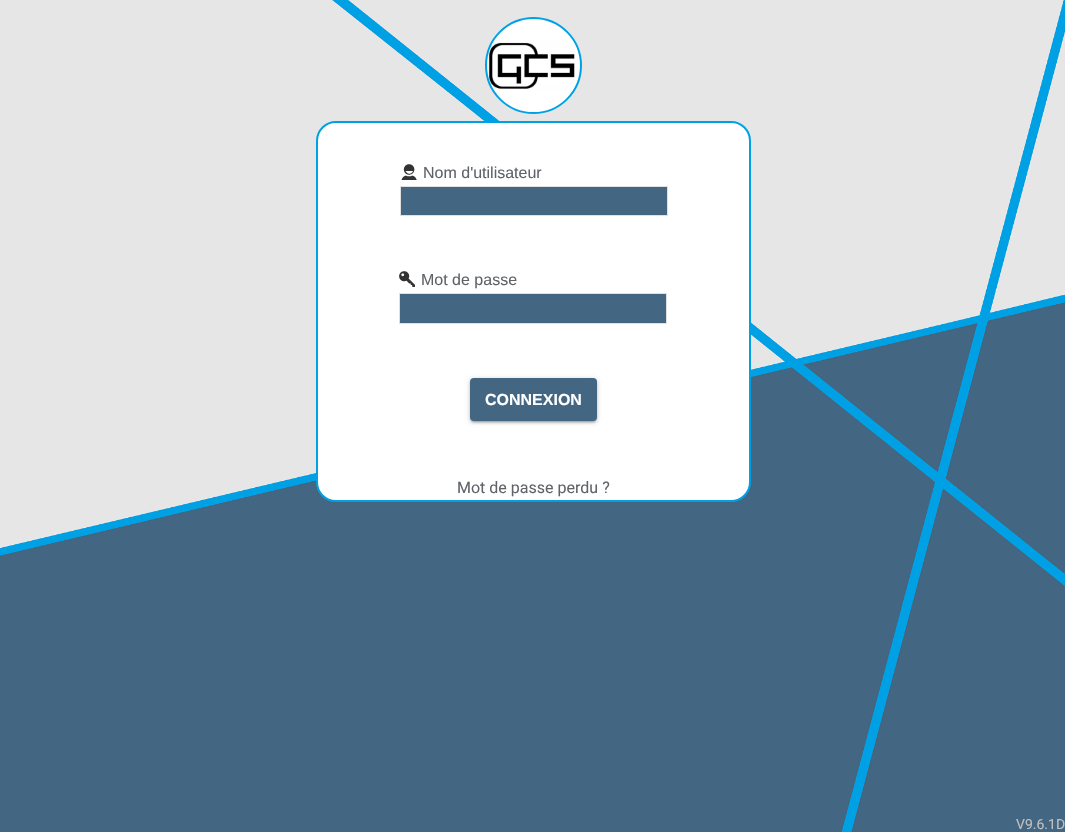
static SkFont makeFont(const char* family, int weight, float size, bool italic = false) {
  SkFontStyle style(weight, SkFontStyle::kNormal_Width,
    italic ? SkFontStyle::kItalic_Slant : SkFontStyle::kUpright_Slant);
  SkFont result(fontMgr->matchFamilyStyle(family, style), size);
  result.setSubpixel(true);
  return result;
}

static void text(SkCanvas* c, const char* s, float x, float y, const SkFont& font, SkColor color) {
  SkPaint ink(SkColor4f::FromColor(color));
  ink.setAntiAlias(true);
  c->drawString(s, x, y, font, ink);
}

static void roundBox(SkCanvas* c, float l, float t, float r, float b, float radius, SkColor color) {
  SkPaint ink(SkColor4f::FromColor(color));
  ink.setAntiAlias(true);
  c->drawRoundRect(SkRect::MakeLTRB(l, t, r, b), radius, radius, ink);
}

static void picture(SkCanvas* c, const char* path, float l, float t, float r, float b) {
  auto image = SkImages::DeferredFromEncodedData(SkData::MakeFromFileName(path));
  c->drawImageRect(image, SkRect::MakeLTRB(l, t, r, b), SkSamplingOptions());
}

void draw(SkCanvas* c) {
  SkPaint paint;
  paint.setAntiAlias(true);
  c->clear(0xffffffff);
  picture(c, "img_01.png", 0, 0, 1065, 832);
  picture(c, "img_02.png", 487, 19, 580, 112);
  paint.setStyle(SkPaint::kStroke_Style);
  paint.setStrokeWidth(2);
  paint.setColor(0xff00a1e4);
  c->drawCircle(533.5f, 65.5f, 47.5f, paint);
  paint.setStyle(SkPaint::kFill_Style);
  paint.setColor(0xffffffff);
  c->drawRoundRect(SkRect::MakeLTRB(317, 122, 750, 501), 19, 19, paint);
  paint.setStyle(SkPaint::kStroke_Style);
  paint.setColor(0xff00a1e4);
  c->drawRoundRect(SkRect::MakeLTRB(317, 122, 750, 501), 19, 19, paint);
  picture(c, "img_03.png", 401, 164, 417, 180);
  SkFont face1 = makeFont("Liberation Sans", 400, 16);
  text(c, "Nom d'utilisateur", 423, 178, face1, 0xff5f6368);
  picture(c, "img_04.png", 399, 271, 415, 287);
  text(c, "Mot de passe", 421, 285, face1, 0xff5f6368);
  SkFont face2 = makeFont("Roboto", 400, 16);
  text(c, "Mot de passe perdu ?", 457, 493, face2, 0xff5f6368);
  paint.setStyle(SkPaint::kFill_Style);
  paint.setColor(0xff436682);
  c->drawRect(SkRect::MakeLTRB(400.5f, 186.5f, 667.5f, 215.5f), paint);
  paint.setStyle(SkPaint::kStroke_Style);
  paint.setStrokeWidth(1);
  paint.setColor(0xffe0e0e0);
  c->drawRect(SkRect::MakeLTRB(400.5f, 186.5f, 667.5f, 215.5f), paint);
  paint.setStyle(SkPaint::kFill_Style);
  paint.setColor(0xff436682);
  c->drawRect(SkRect::MakeLTRB(399.5f, 293.5f, 666.5f, 323.5f), paint);
  paint.setStyle(SkPaint::kStroke_Style);
  paint.setColor(0xffe0e0e0);
  c->drawRect(SkRect::MakeLTRB(399.5f, 293.5f, 666.5f, 323.5f), paint);
  paint.setStyle(SkPaint::kFill_Style);
  paint.setColor(0x33000000);
  paint.setMaskFilter(SkMaskFilter::MakeBlur(kNormal_SkBlurStyle, 2.5f));
  c->drawRoundRect(SkRect::MakeLTRB(470, 379, 597, 422), 4, 4, paint);
  paint.setMaskFilter(nullptr);
  paint.setColor(0x1f000000);
  paint.setMaskFilter(SkMaskFilter::MakeBlur(kNormal_SkBlurStyle, 0.5f));
  c->drawRoundRect(SkRect::MakeLTRB(472, 383, 595, 422), 2, 2, paint);
  paint.setMaskFilter(nullptr);
  paint.setColor(0x24000000);
  paint.setMaskFilter(SkMaskFilter::MakeBlur(kNormal_SkBlurStyle, 1));
  c->drawRoundRect(SkRect::MakeLTRB(470, 380, 597, 423), 4, 4, paint);
  paint.setMaskFilter(nullptr);
  roundBox(c, 470, 378, 597, 421, 4, 0xff436682);
  SkFont face3 = makeFont("Liberation Sans", 700, 16);
  text(c, "CONNEXION", 485, 405, face3, 0xffffffff);
  SkFont face4 = makeFont("Roboto", 400, 14);
  text(c, "V9.6.1D", 1016, 829, face4, 0xffc0c0c0);
}
